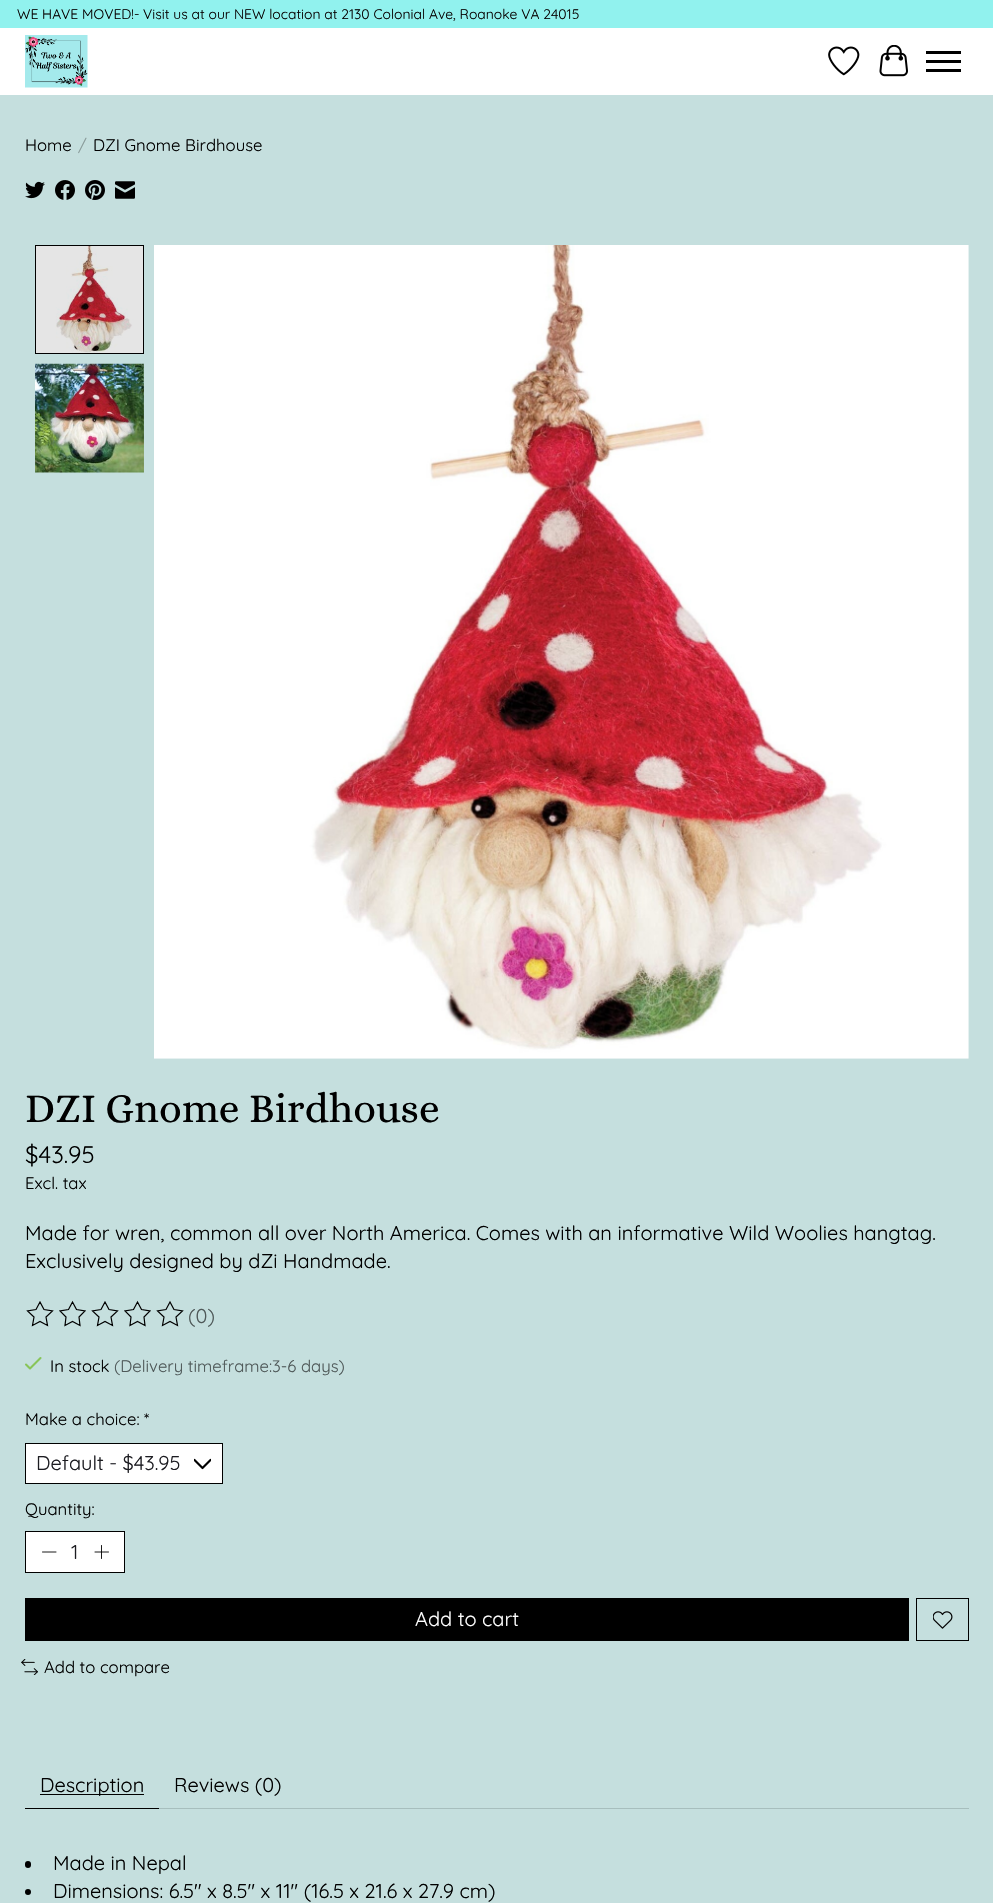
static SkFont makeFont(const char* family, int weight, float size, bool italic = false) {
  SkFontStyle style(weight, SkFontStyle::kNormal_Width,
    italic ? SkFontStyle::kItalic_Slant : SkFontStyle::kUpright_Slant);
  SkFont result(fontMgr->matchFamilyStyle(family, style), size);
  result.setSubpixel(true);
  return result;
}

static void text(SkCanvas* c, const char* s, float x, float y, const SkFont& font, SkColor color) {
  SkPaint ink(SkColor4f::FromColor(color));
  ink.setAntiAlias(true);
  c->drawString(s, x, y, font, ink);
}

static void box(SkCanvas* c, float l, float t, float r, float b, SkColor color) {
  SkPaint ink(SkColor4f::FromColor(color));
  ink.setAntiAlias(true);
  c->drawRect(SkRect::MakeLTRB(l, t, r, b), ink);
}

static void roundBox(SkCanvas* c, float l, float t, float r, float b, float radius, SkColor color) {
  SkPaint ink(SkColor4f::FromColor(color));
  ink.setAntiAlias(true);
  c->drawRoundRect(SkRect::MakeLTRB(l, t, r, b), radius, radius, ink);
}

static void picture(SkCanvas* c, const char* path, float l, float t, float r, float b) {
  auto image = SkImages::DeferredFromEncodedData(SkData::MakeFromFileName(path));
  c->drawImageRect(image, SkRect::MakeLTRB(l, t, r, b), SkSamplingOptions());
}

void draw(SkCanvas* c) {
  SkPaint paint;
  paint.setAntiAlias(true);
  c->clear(0xffc5dfde);
  box(c, 0, 28, 993, 95, 0xffffffff);
  box(c, 0, 0, 993, 28, 0xff91f2ee);
  SkFont face1 = makeFont("Quicksand", 400, 13.9f);
  text(c, "WE HAVE MOVED!- Visit us at our NEW location at 2130 Colonial Ave, Roanoke VA 24015", 17, 19, face1, 0xff060000);
  picture(c, "img_01.png", 25, 35, 88, 88);
  picture(c, "img_02.png", 828, 46, 860, 76);
  picture(c, "img_03.png", 879, 45, 908, 77);
  box(c, 926, 60, 961, 63, 0xff000000);
  box(c, 926, 51, 961, 54, 0xff000000);
  box(c, 926, 69, 961, 72, 0xff000000);
  SkFont face2 = makeFont("Quicksand", 400, 16.7f);
  text(c, "Home", 25, 151, face2, 0xff000000);
  text(c, "/", 78, 151, face2, 0xff8a9c9b);
  text(c, "DZI Gnome Birdhouse", 93, 151, face2, 0xff000000);
  picture(c, "img_04.png", 25, 181, 45, 199);
  picture(c, "img_05.png", 55, 180, 75, 200);
  picture(c, "img_06.png", 85, 180, 105, 200);
  picture(c, "img_07.png", 115, 181, 135, 199);
  picture(c, "img_08.png", 36, 246, 143, 353);
  paint.setStyle(SkPaint::kStroke_Style);
  paint.setStrokeWidth(1);
  paint.setColor(0xff000000);
  c->drawRect(SkRect::MakeLTRB(35.5f, 245.5f, 143.5f, 353.5f), paint);
  picture(c, "img_09.png", 35, 363, 144, 473);
  picture(c, "img_10.png", 154, 245, 969, 1059);
  SkFont face3 = makeFont("Alice", 400, 41.5f);
  text(c, "DZI Gnome Birdhouse", 25, 1122, face3, 0xff000000);
  SkFont face4 = makeFont("Quicksand", 400, 24);
  text(c, "$43.95", 25, 1163, face4, 0xff000000);
  text(c, "Excl. tax", 25, 1189, face2, 0xff000000);
  SkFont face5 = makeFont("Quicksand", 400, 20);
  text(c, "Made for wren, common all over North America. Comes with an informative Wild Woolies hangtag.", 25, 1240, face5, 0xff000000);
  text(c, "Exclusively designed by dZi Handmade.", 25, 1268, face5, 0xff000000);
  paint.setStrokeWidth(1.2f);
  c->drawPath(SkPathBuilder().moveTo(40, 1302).lineTo(44, 1309.5f).lineTo(52.5f, 1311).lineTo(46, 1317).lineTo(47.5f, 1325.5f).lineTo(40, 1321.5f).lineTo(32.5f, 1325.5f).lineTo(34, 1317).lineTo(27.5f, 1311).lineTo(36, 1309.5f).close().moveTo(72.5f, 1302).lineTo(76.5f, 1309.5f).lineTo(85, 1311).lineTo(79, 1317).lineTo(80, 1325.5f).lineTo(72.5f, 1321.5f).lineTo(65, 1325.5f).lineTo(66, 1317).lineTo(60, 1311).lineTo(68.5f, 1309.5f).close().detach(), paint);
  c->drawPath(SkPathBuilder().moveTo(105, 1302).lineTo(109, 1309.5f).lineTo(117.5f, 1311).lineTo(111, 1317).lineTo(112.5f, 1325.5f).lineTo(105, 1321.5f).lineTo(97.5f, 1325.5f).lineTo(99, 1317).lineTo(92.5f, 1311).lineTo(101, 1309.5f).close().moveTo(137.5f, 1302).lineTo(141.5f, 1309.5f).lineTo(150, 1311).lineTo(144, 1317).lineTo(145, 1325.5f).lineTo(137.5f, 1321.5f).lineTo(130, 1325.5f).lineTo(131, 1317).lineTo(125, 1311).lineTo(133.5f, 1309.5f).close().detach(), paint);
  c->drawPath(SkPathBuilder().moveTo(170, 1302).lineTo(174, 1309.5f).lineTo(182.5f, 1311).lineTo(176, 1317).lineTo(177.5f, 1325.5f).lineTo(170, 1321.5f).lineTo(162.5f, 1325.5f).lineTo(164, 1317).lineTo(157.5f, 1311).lineTo(166, 1309.5f).close().detach(), paint);
  text(c, "(0)", 188, 1323, face5, 0xff4f5959);
  paint.setStrokeWidth(2.1f);
  paint.setStrokeCap(SkPaint::kRound_Cap);
  paint.setStrokeJoin(SkPaint::kRound_Join);
  paint.setColor(0xff88c559);
  c->drawPath(SkPathBuilder().moveTo(26, 1364.5f).lineTo(30, 1368.5f).lineTo(40.5f, 1358).detach(), paint);
  text(c, "In stock", 50, 1372, face2, 0xff000000);
  text(c, "(Delivery timeframe:3-6 days)", 114, 1372, face2, 0xff4f5959);
  text(c, "Make a choice: *", 25, 1425, face2, 0xff000000);
  box(c, 26, 1444, 222, 1483, 0xffffffff);
  c->save();
  c->clipRect(SkRect::MakeLTRB(194, 1455, 211, 1473));
  paint.setStrokeWidth(2.2f);
  paint.setColor(0xff000000);
  c->drawPath(SkPathBuilder().moveTo(210.5f, 1460).lineTo(202.5f, 1468).lineTo(194.5f, 1460).detach(), paint);
  c->restore();
  paint.setStrokeWidth(1);
  paint.setStrokeCap(SkPaint::kButt_Cap);
  paint.setStrokeJoin(SkPaint::kMiter_Join);
  c->drawRect(SkRect::MakeLTRB(25.5f, 1443.5f, 222.5f, 1483.5f), paint);
  text(c, "Default - $43.95", 36, 1470, face5, 0xff1c1c21);
  text(c, "Quantity:", 25, 1515, face2, 0xff000000);
  paint.setStyle(SkPaint::kFill_Style);
  paint.setColor(0xffffffff);
  c->drawRect(SkRect::MakeLTRB(25.5f, 1531.5f, 124.5f, 1572.5f), paint);
  paint.setStyle(SkPaint::kStroke_Style);
  paint.setColor(0xff000000);
  c->drawRect(SkRect::MakeLTRB(25.5f, 1531.5f, 124.5f, 1572.5f), paint);
  paint.setStrokeWidth(0.9f);
  paint.setStrokeCap(SkPaint::kRound_Cap);
  paint.setStrokeJoin(SkPaint::kRound_Join);
  c->drawPath(SkPathBuilder().moveTo(42.5f, 1552).lineTo(56, 1552).detach(), paint);
  text(c, "1", 71, 1559, face5, 0xff1c1c21);
  c->drawPath(SkPathBuilder().moveTo(101.5f, 1545.5f).lineTo(101.5f, 1558.5f).moveTo(95, 1552).lineTo(108.5f, 1552).detach(), paint);
  box(c, 25, 1598, 909, 1641, 0xff000000);
  text(c, "Add to cart", 415, 1626, face5, 0xffffffff);
  paint.setStrokeWidth(1);
  paint.setStrokeCap(SkPaint::kButt_Cap);
  paint.setStrokeJoin(SkPaint::kMiter_Join);
  c->drawRect(SkRect::MakeLTRB(916.5f, 1598.5f, 968.5f, 1640.5f), paint);
  picture(c, "img_11.png", 933, 1611, 953, 1629);
  picture(c, "img_12.png", 21, 1659, 38, 1675);
  text(c, "Add to compare", 44, 1673, face2, 0xff000000);
  box(c, 25, 1808, 159, 1809, 0xff000000);
  box(c, 40, 1794, 144, 1795, 0xff000000);
  text(c, "Description", 40, 1792, face5, 0xff000000);
  text(c, "Reviews (0)", 174, 1792, face5, 0xff000000);
  box(c, 159, 1808, 969, 1809, 0xffa7bebd);
  roundBox(c, 25, 1861, 31, 1868, 3, 0xff000000);
  text(c, "Made in Nepal", 53, 1870, face5, 0xff000000);
  paint.setStyle(SkPaint::kFill_Style);
  c->drawCircle(28, 1892, 3, paint);
  text(c, "Dimensions: 6.5″ x 8.5″ x 11″ (16.5 x 21.6 x 27.9 cm)", 53, 1898, face5, 0xff000000);
}
